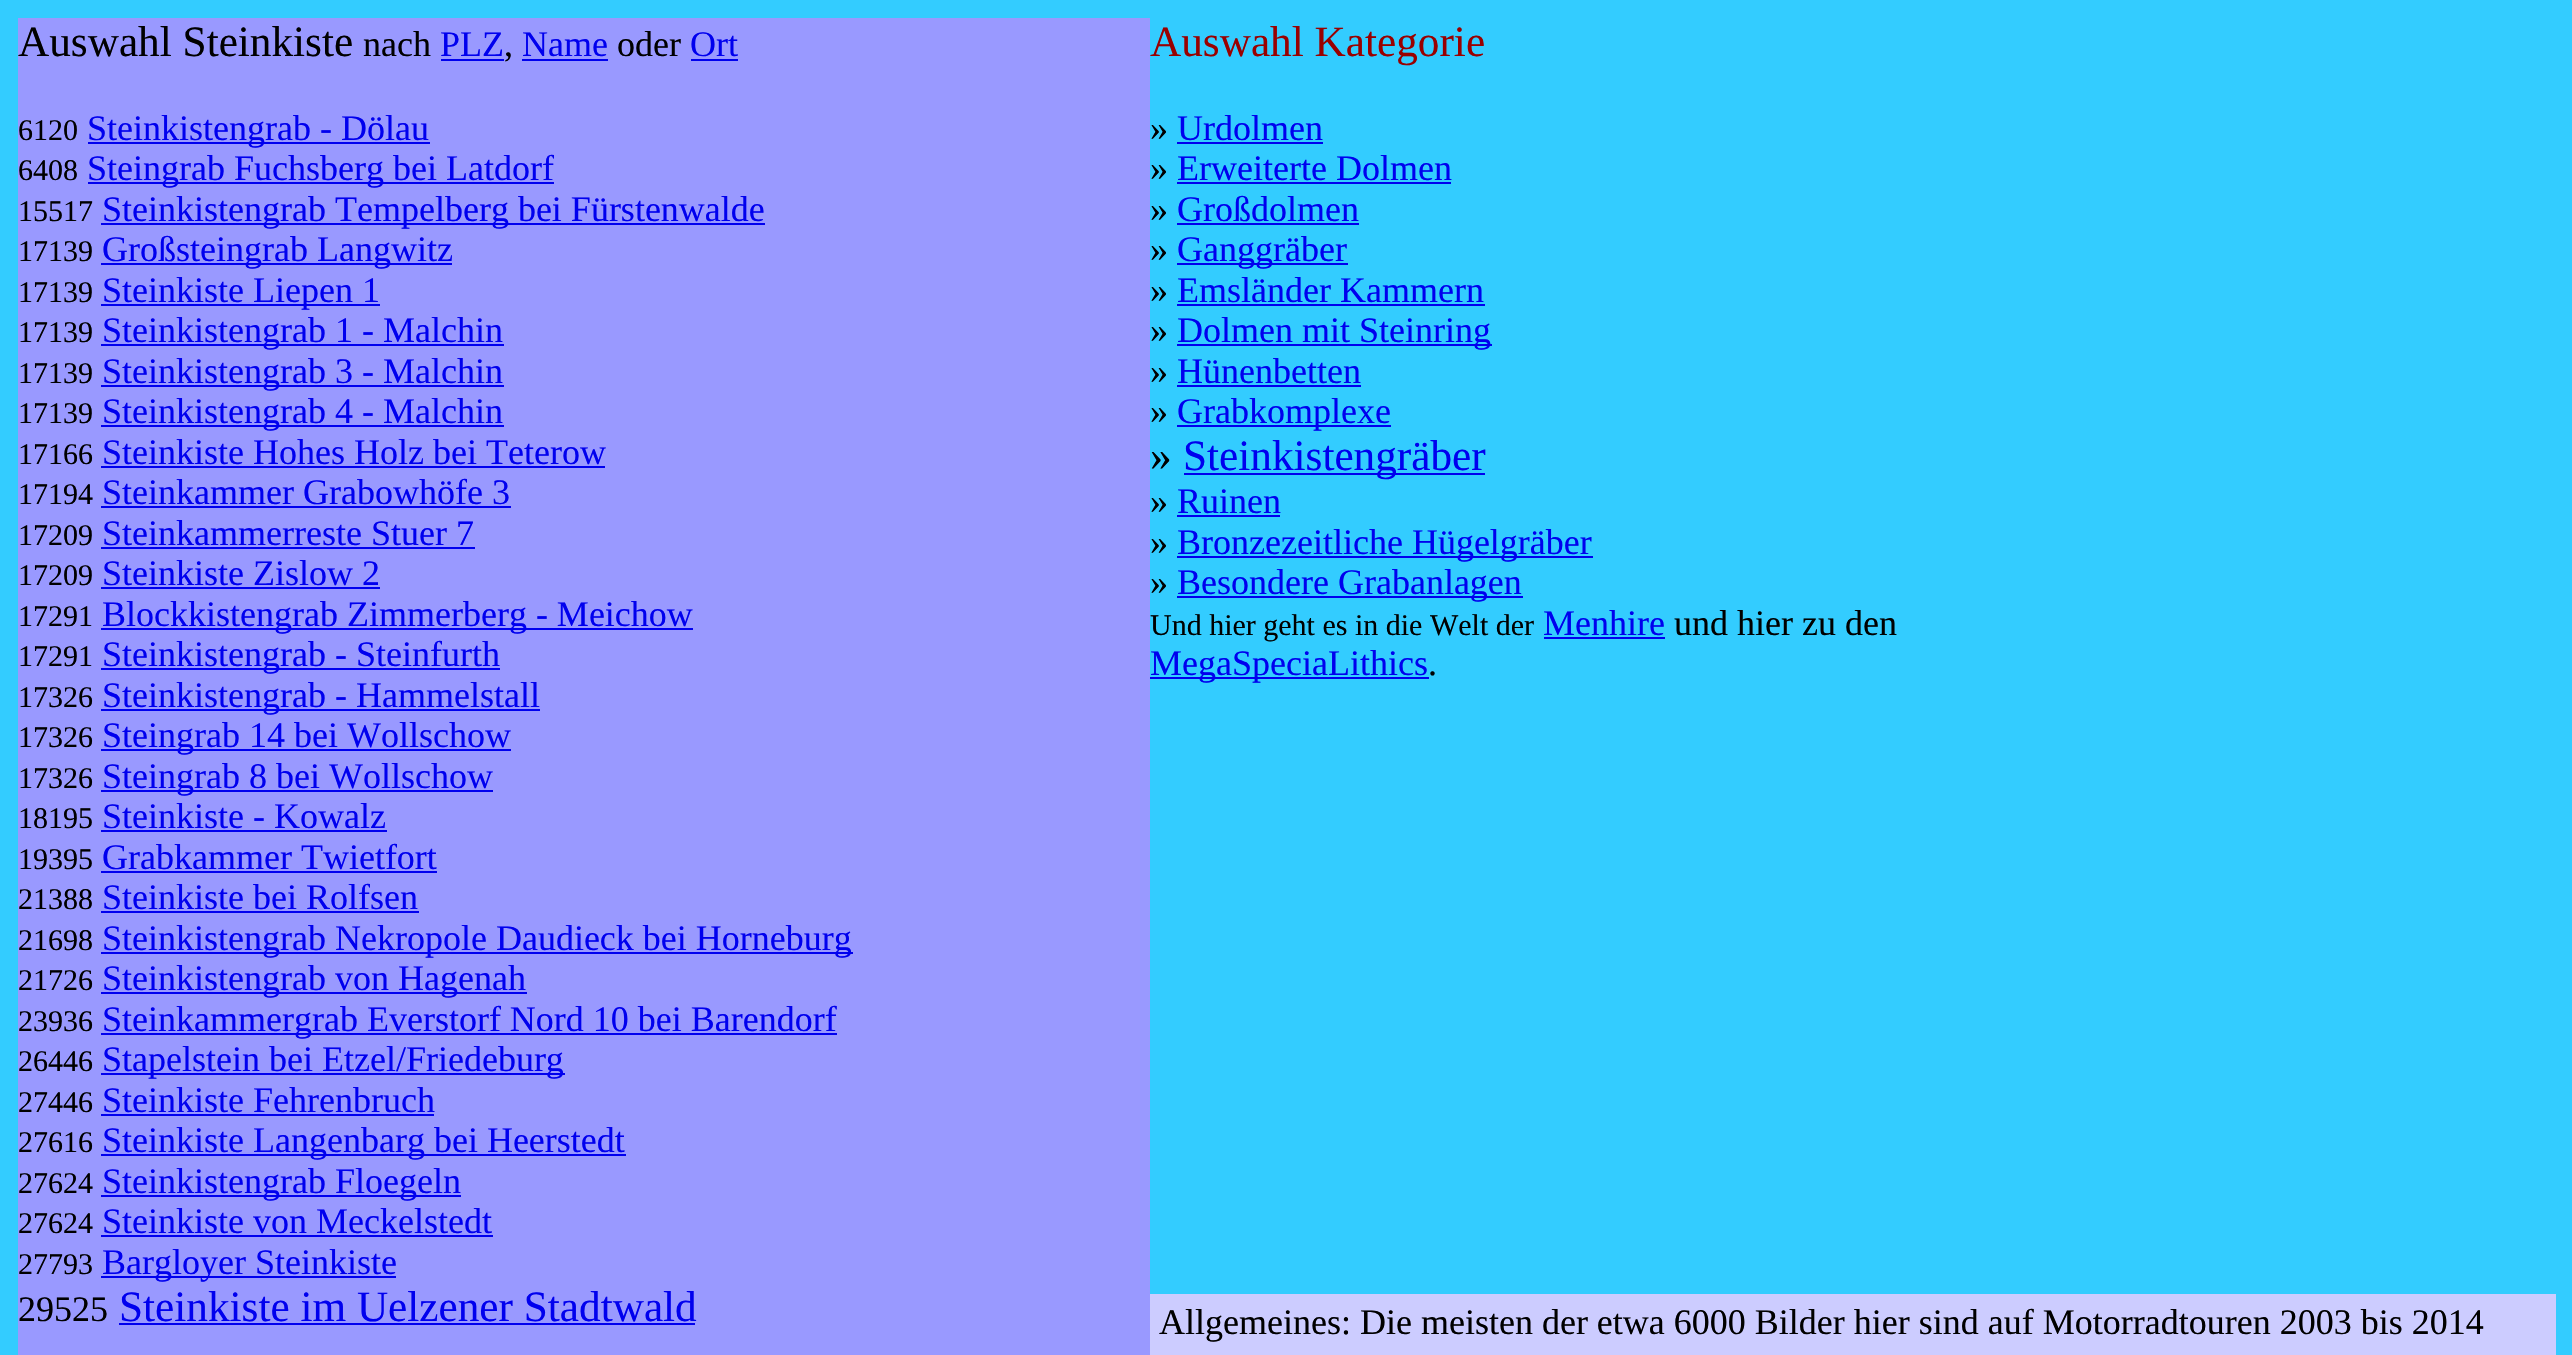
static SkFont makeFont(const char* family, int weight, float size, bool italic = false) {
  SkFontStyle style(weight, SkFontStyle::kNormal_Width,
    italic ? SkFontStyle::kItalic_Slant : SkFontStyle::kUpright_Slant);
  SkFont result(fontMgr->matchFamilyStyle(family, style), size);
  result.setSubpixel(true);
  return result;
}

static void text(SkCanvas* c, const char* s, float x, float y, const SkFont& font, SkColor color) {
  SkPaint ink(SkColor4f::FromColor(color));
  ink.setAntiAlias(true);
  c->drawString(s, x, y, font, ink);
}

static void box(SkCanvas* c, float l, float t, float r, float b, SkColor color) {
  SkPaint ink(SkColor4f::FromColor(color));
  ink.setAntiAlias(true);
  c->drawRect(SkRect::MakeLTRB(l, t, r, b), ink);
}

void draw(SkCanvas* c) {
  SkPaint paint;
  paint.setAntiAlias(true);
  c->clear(0xff33ccff);
  box(c, 18, 18, 1150, 1355, 0xff9999ff);
  SkFont face1 = makeFont("Liberation Serif", 400, 43.25f);
  text(c, "Auswahl Steinkiste", 18, 56, face1, 0xff000000);
  SkFont face2 = makeFont("Liberation Serif", 400, 36);
  text(c, "nach", 363, 56, face2, 0xff000000);
  text(c, "PLZ", 440, 56, face2, 0xff0000ee);
  box(c, 441, 59, 504, 61, 0xff0000ee);
  text(c, ",", 504, 56, face2, 0xff000000);
  text(c, "Name", 522, 56, face2, 0xff0000ee);
  box(c, 522, 59, 608, 61, 0xff0000ee);
  text(c, "oder", 617, 56, face2, 0xff000000);
  text(c, "Ort", 690, 56, face2, 0xff0000ee);
  box(c, 691, 59, 738, 61, 0xff0000ee);
  SkFont face3 = makeFont("Liberation Serif", 400, 30);
  text(c, "6120", 18, 140, face3, 0xff000000);
  box(c, 88, 142, 430, 144, 0xff0000ee);
  text(c, "Steinkistengrab - Dölau", 87, 140, face2, 0xff0000ee);
  text(c, "6408", 18, 180, face3, 0xff000000);
  box(c, 88, 182, 554, 184, 0xff0000ee);
  text(c, "Steingrab Fuchsberg bei Latdorf", 87, 180, face2, 0xff0000ee);
  text(c, "15517", 18, 221, face3, 0xff000000);
  box(c, 101, 223, 765, 225, 0xff0000ee);
  text(c, "Steinkistengrab Tempelberg bei Fürstenwalde", 102, 221, face2, 0xff0000ee);
  text(c, "17139", 18, 261, face3, 0xff000000);
  box(c, 101, 263, 452, 265, 0xff0000ee);
  text(c, "Großsteingrab Langwitz", 102, 261, face2, 0xff0000ee);
  text(c, "17139", 18, 302, face3, 0xff000000);
  box(c, 101, 304, 380, 306, 0xff0000ee);
  text(c, "Steinkiste Liepen 1", 102, 302, face2, 0xff0000ee);
  text(c, "17139", 18, 342, face3, 0xff000000);
  box(c, 101, 344, 504, 346, 0xff0000ee);
  text(c, "Steinkistengrab 1 - Malchin", 102, 342, face2, 0xff0000ee);
  text(c, "17139", 18, 383, face3, 0xff000000);
  box(c, 101, 385, 504, 387, 0xff0000ee);
  text(c, "Steinkistengrab 3 - Malchin", 102, 383, face2, 0xff0000ee);
  text(c, "17139", 18, 423, face3, 0xff000000);
  box(c, 101, 425, 504, 427, 0xff0000ee);
  text(c, "Steinkistengrab 4 - Malchin", 102, 423, face2, 0xff0000ee);
  text(c, "17166", 18, 464, face3, 0xff000000);
  text(c, "Steinkiste Hohes Holz bei Teterow", 102, 464, face2, 0xff0000ee);
  box(c, 101, 466, 605, 468, 0xff0000ee);
  text(c, "17194", 18, 504, face3, 0xff000000);
  text(c, "Steinkammer Grabowhöfe 3", 102, 504, face2, 0xff0000ee);
  box(c, 101, 506, 511, 508, 0xff0000ee);
  text(c, "17209", 18, 545, face3, 0xff000000);
  text(c, "Steinkammerreste Stuer 7", 102, 545, face2, 0xff0000ee);
  box(c, 101, 547, 475, 549, 0xff0000ee);
  text(c, "17209", 18, 585, face3, 0xff000000);
  text(c, "Steinkiste Zislow 2", 102, 585, face2, 0xff0000ee);
  box(c, 101, 587, 380, 589, 0xff0000ee);
  text(c, "17291", 18, 626, face3, 0xff000000);
  box(c, 101, 628, 693, 630, 0xff0000ee);
  text(c, "Blockkistengrab Zimmerberg - Meichow", 102, 626, face2, 0xff0000ee);
  text(c, "17291", 18, 666, face3, 0xff000000);
  box(c, 101, 668, 500, 670, 0xff0000ee);
  text(c, "Steinkistengrab - Steinfurth", 102, 666, face2, 0xff0000ee);
  text(c, "17326", 18, 707, face3, 0xff000000);
  box(c, 101, 709, 540, 711, 0xff0000ee);
  text(c, "Steinkistengrab - Hammelstall", 102, 707, face2, 0xff0000ee);
  text(c, "17326", 18, 747, face3, 0xff000000);
  box(c, 101, 749, 511, 751, 0xff0000ee);
  text(c, "Steingrab 14 bei Wollschow", 102, 747, face2, 0xff0000ee);
  text(c, "17326", 18, 788, face3, 0xff000000);
  box(c, 101, 790, 493, 792, 0xff0000ee);
  text(c, "Steingrab 8 bei Wollschow", 102, 788, face2, 0xff0000ee);
  text(c, "18195", 18, 828, face3, 0xff000000);
  text(c, "Steinkiste - Kowalz", 102, 828, face2, 0xff0000ee);
  box(c, 101, 830, 387, 832, 0xff0000ee);
  text(c, "19395", 18, 869, face3, 0xff000000);
  text(c, "Grabkammer Twietfort", 102, 869, face2, 0xff0000ee);
  box(c, 101, 871, 437, 873, 0xff0000ee);
  text(c, "21388", 18, 909, face3, 0xff000000);
  text(c, "Steinkiste bei Rolfsen", 102, 909, face2, 0xff0000ee);
  box(c, 101, 911, 419, 913, 0xff0000ee);
  text(c, "21698", 18, 950, face3, 0xff000000);
  box(c, 101, 952, 853, 954, 0xff0000ee);
  text(c, "Steinkistengrab Nekropole Daudieck bei Horneburg", 102, 950, face2, 0xff0000ee);
  text(c, "21726", 18, 990, face3, 0xff000000);
  box(c, 101, 992, 527, 994, 0xff0000ee);
  text(c, "Steinkistengrab von Hagenah", 102, 990, face2, 0xff0000ee);
  text(c, "23936", 18, 1031, face3, 0xff000000);
  box(c, 101, 1033, 837, 1035, 0xff0000ee);
  text(c, "Steinkammergrab Everstorf Nord 10 bei Barendorf", 102, 1031, face2, 0xff0000ee);
  text(c, "26446", 18, 1071, face3, 0xff000000);
  box(c, 101, 1073, 565, 1075, 0xff0000ee);
  text(c, "Stapelstein bei Etzel/Friedeburg", 102, 1071, face2, 0xff0000ee);
  text(c, "27446", 18, 1112, face3, 0xff000000);
  text(c, "Steinkiste Fehrenbruch", 102, 1112, face2, 0xff0000ee);
  box(c, 101, 1114, 434, 1116, 0xff0000ee);
  text(c, "27616", 18, 1152, face3, 0xff000000);
  box(c, 101, 1154, 626, 1156, 0xff0000ee);
  text(c, "Steinkiste Langenbarg bei Heerstedt", 102, 1152, face2, 0xff0000ee);
  text(c, "27624", 18, 1193, face3, 0xff000000);
  box(c, 101, 1195, 461, 1197, 0xff0000ee);
  text(c, "Steinkistengrab Floegeln", 102, 1193, face2, 0xff0000ee);
  text(c, "27624", 18, 1233, face3, 0xff000000);
  text(c, "Steinkiste von Meckelstedt", 102, 1233, face2, 0xff0000ee);
  box(c, 101, 1235, 493, 1237, 0xff0000ee);
  text(c, "27793", 18, 1274, face3, 0xff000000);
  box(c, 101, 1276, 396, 1278, 0xff0000ee);
  text(c, "Bargloyer Steinkiste", 102, 1274, face2, 0xff0000ee);
  text(c, "29525", 18, 1321, face2, 0xff000000);
  text(c, "Steinkiste im Uelzener Stadtwald", 119, 1321, face1, 0xff0000ee);
  box(c, 119, 1323, 695, 1325, 0xff0000ee);
  text(c, "Auswahl Kategorie", 1150, 56, face1, 0xff990000);
  text(c, "»", 1150, 140, face2, 0xff000000);
  text(c, "Urdolmen", 1177, 140, face2, 0xff0000ee);
  box(c, 1177, 142, 1323, 144, 0xff0000ee);
  text(c, "»", 1150, 180, face2, 0xff000000);
  text(c, "Erweiterte Dolmen", 1177, 180, face2, 0xff0000ee);
  box(c, 1177, 182, 1451, 184, 0xff0000ee);
  text(c, "»", 1150, 221, face2, 0xff000000);
  text(c, "Großdolmen", 1177, 221, face2, 0xff0000ee);
  box(c, 1177, 223, 1359, 225, 0xff0000ee);
  text(c, "»", 1150, 261, face2, 0xff000000);
  box(c, 1177, 263, 1348, 265, 0xff0000ee);
  text(c, "Ganggräber", 1177, 261, face2, 0xff0000ee);
  text(c, "»", 1150, 302, face2, 0xff000000);
  text(c, "Emsländer Kammern", 1177, 302, face2, 0xff0000ee);
  box(c, 1177, 304, 1485, 306, 0xff0000ee);
  text(c, "»", 1150, 342, face2, 0xff000000);
  box(c, 1177, 344, 1492, 346, 0xff0000ee);
  text(c, "Dolmen mit Steinring", 1177, 342, face2, 0xff0000ee);
  text(c, "»", 1150, 383, face2, 0xff000000);
  text(c, "Hünenbetten", 1177, 383, face2, 0xff0000ee);
  box(c, 1177, 385, 1361, 387, 0xff0000ee);
  text(c, "»", 1150, 423, face2, 0xff000000);
  box(c, 1177, 425, 1391, 427, 0xff0000ee);
  text(c, "Grabkomplexe", 1177, 423, face2, 0xff0000ee);
  text(c, "»", 1150, 470, face1, 0xff000000);
  box(c, 1184, 473, 1485, 475, 0xff0000ee);
  text(c, "Steinkistengräber", 1183, 470, face1, 0xff0000ee);
  text(c, "»", 1150, 513, face2, 0xff000000);
  text(c, "Ruinen", 1177, 513, face2, 0xff0000ee);
  box(c, 1177, 515, 1280, 517, 0xff0000ee);
  text(c, "»", 1150, 554, face2, 0xff000000);
  box(c, 1177, 556, 1593, 558, 0xff0000ee);
  text(c, "Bronzezeitliche Hügelgräber", 1177, 554, face2, 0xff0000ee);
  text(c, "»", 1150, 594, face2, 0xff000000);
  box(c, 1177, 596, 1523, 598, 0xff0000ee);
  text(c, "Besondere Grabanlagen", 1177, 594, face2, 0xff0000ee);
  text(c, "Und hier geht es in die Welt der", 1150, 635, face3, 0xff000000);
  text(c, "Menhire", 1543, 635, face2, 0xff0000ee);
  box(c, 1544, 637, 1665, 639, 0xff0000ee);
  text(c, "und hier zu den", 1674, 635, face2, 0xff000000);
  box(c, 1150, 677, 1429, 679, 0xff0000ee);
  text(c, "MegaSpeciaLithics", 1150, 675, face2, 0xff0000ee);
  text(c, ".", 1428, 675, face2, 0xff000000);
  box(c, 1150, 1294, 2556, 1355, 0xffccccff);
  text(c, "Allgemeines: Die meisten der etwa 6000 Bilder hier sind auf Motorradtouren 2003 bis 2014", 1159, 1334, face2, 0xff000000);
}
